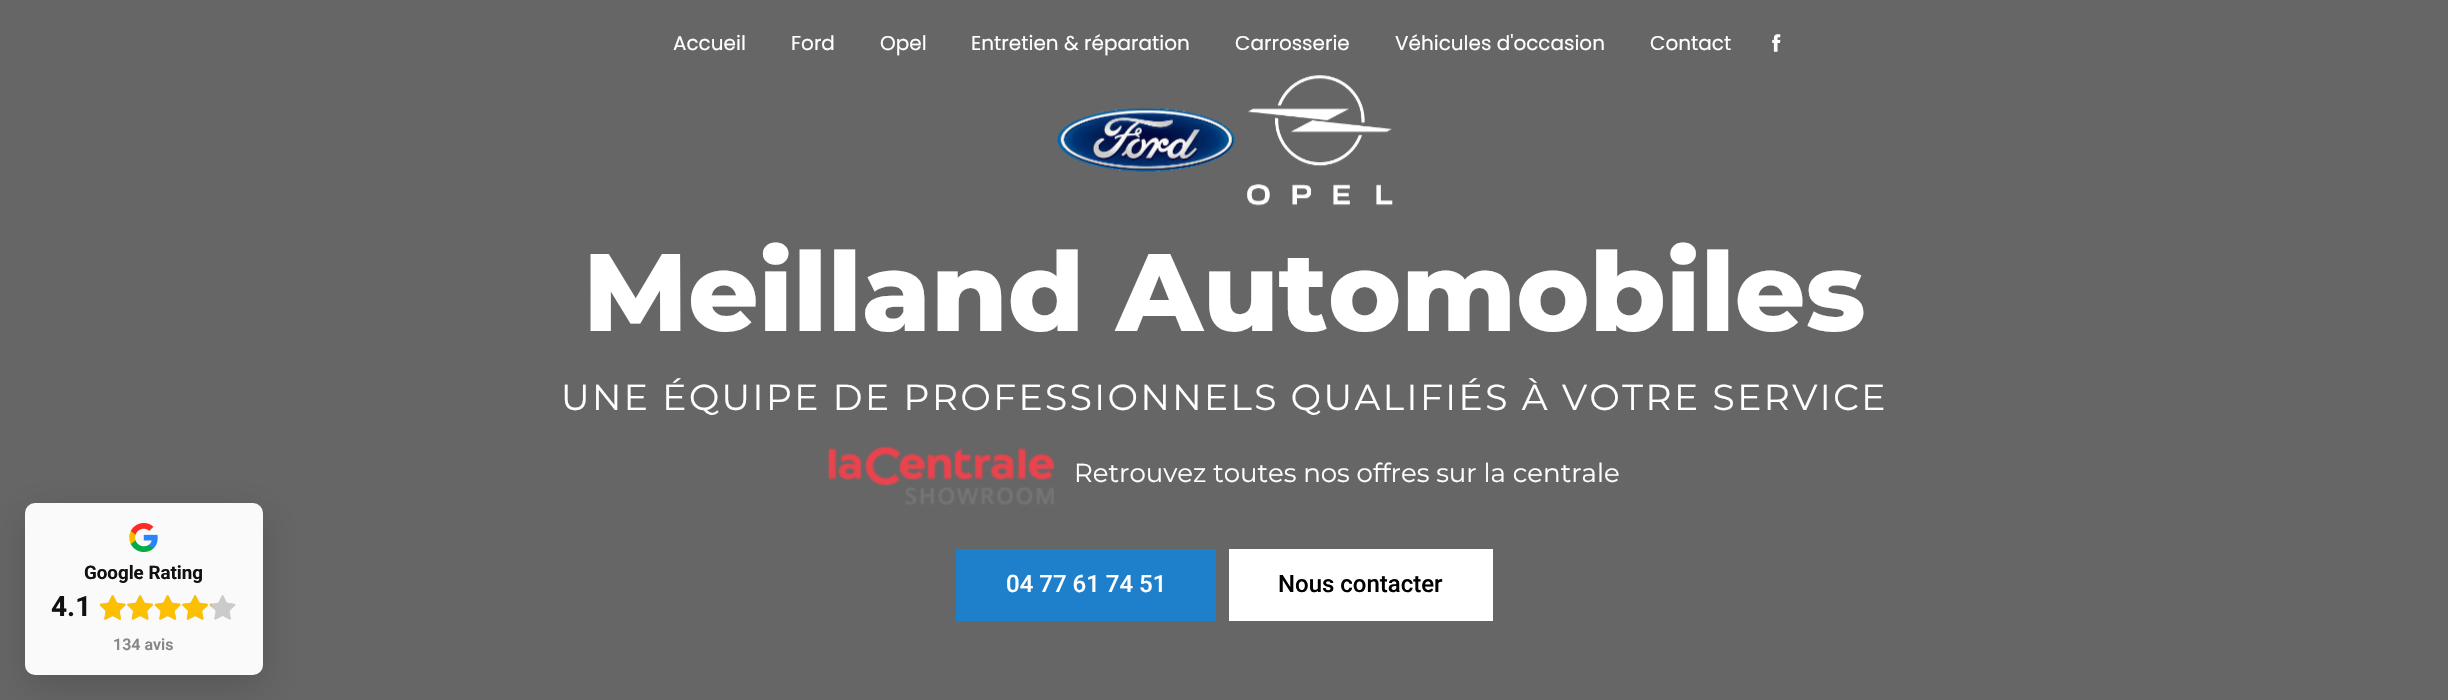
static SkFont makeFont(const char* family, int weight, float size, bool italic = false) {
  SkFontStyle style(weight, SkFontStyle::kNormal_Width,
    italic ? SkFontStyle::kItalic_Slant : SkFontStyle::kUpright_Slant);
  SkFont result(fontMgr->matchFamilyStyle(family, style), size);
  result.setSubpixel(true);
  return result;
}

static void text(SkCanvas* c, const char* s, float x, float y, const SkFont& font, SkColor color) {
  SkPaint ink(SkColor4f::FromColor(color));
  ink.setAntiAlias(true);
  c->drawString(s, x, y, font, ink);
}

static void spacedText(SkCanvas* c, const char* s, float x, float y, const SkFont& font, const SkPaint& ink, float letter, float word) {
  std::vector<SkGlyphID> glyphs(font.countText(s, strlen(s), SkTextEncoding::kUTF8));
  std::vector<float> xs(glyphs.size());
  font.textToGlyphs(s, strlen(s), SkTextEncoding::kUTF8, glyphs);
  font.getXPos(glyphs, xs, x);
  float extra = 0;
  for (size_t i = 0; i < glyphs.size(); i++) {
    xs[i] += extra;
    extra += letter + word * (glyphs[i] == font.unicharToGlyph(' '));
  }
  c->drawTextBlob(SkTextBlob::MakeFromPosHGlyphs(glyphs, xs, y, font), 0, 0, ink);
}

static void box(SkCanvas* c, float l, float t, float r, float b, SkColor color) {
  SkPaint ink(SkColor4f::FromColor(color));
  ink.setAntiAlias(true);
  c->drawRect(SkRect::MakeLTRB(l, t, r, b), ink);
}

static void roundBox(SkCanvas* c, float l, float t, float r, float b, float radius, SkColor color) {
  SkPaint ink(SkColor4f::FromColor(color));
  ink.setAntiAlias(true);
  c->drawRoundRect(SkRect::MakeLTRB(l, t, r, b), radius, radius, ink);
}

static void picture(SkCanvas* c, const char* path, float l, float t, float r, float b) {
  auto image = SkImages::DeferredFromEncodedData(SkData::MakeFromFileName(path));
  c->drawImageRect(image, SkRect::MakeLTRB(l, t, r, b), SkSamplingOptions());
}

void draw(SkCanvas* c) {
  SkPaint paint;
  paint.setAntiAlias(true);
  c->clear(0xff666666);
  SkFont face1 = makeFont("Poppins", 400, 20);
  text(c, "Accueil", 673, 50, face1, 0xffffffff);
  text(c, "Ford", 791, 50, face1, 0xffffffff);
  text(c, "Opel", 880, 50, face1, 0xffffffff);
  text(c, "Entretien & réparation", 971, 50, face1, 0xffffffff);
  text(c, "Carrosserie", 1235, 50, face1, 0xffffffff);
  text(c, "Véhicules d'occasion", 1395, 50, face1, 0xffffffff);
  text(c, "Contact", 1650, 50, face1, 0xffffffff);
  picture(c, "img_01.png", 1772, 34, 1781, 52);
  picture(c, "img_02.png", 1057, 108, 1235, 172);
  picture(c, "img_03.png", 1247, 75, 1393, 206);
  SkFont face2 = makeFont("Montserrat", 800, 110);
  text(c, "Meilland Automobiles", 583, 331, face2, 0xffffffff);
  SkFont face3 = makeFont("Montserrat", 400, 36);
  paint.setColor(0xffffffff);
  spacedText(c, "UNE ÉQUIPE DE PROFESSIONNELS QUALIFIÉS À VOTRE SERVICE", 561, 410, face3, paint, 2.5f, 0);
  picture(c, "img_04.png", 828, 446, 1054, 505);
  SkFont face4 = makeFont("Montserrat", 400, 26);
  text(c, "Retrouvez toutes nos offres sur la centrale", 1074, 482, face4, 0xffffffff);
  box(c, 956, 549, 1216, 621, 0xff1e80cb);
  SkFont face5 = makeFont("Roboto", 500, 24);
  text(c, "04 77 61 74 51", 1006, 592, face5, 0xffffffff);
  box(c, 1229, 549, 1493, 621, 0xffffffff);
  text(c, "Nous contacter", 1278, 592, face5, 0xff000000);
  paint.setColor(0x26000000);
  paint.setMaskFilter(SkMaskFilter::MakeBlur(kNormal_SkBlurStyle, 19));
  c->drawRoundRect(SkRect::MakeLTRB(25, 515, 263, 688), 10, 10, paint);
  paint.setMaskFilter(nullptr);
  roundBox(c, 25, 503, 263, 675, 10, 0xfffafafa);
  picture(c, "img_05.png", 129, 523, 158, 553);
  SkFont face6 = makeFont("Roboto", 700, 18.75f);
  text(c, "Google Rating", 84, 579, face6, 0xff111111);
  SkFont face7 = makeFont("Roboto", 700, 28);
  text(c, "4.1", 51, 616, face7, 0xff111111);
  picture(c, "img_06.png", 99, 595, 126, 620);
  picture(c, "img_07.png", 99, 595, 126, 620);
  picture(c, "img_08.png", 127, 595, 153, 620);
  picture(c, "img_09.png", 127, 595, 153, 620);
  picture(c, "img_06.png", 154, 595, 181, 620);
  picture(c, "img_07.png", 154, 595, 181, 620);
  picture(c, "img_08.png", 182, 595, 208, 620);
  picture(c, "img_09.png", 182, 595, 208, 620);
  picture(c, "img_06.png", 209, 595, 236, 620);
  picture(c, "img_10.png", 209, 603, 212, 608);
  SkFont face8 = makeFont("Roboto", 600, 16);
  text(c, "134 avis", 113, 650, face8, 0xff868686);
}
